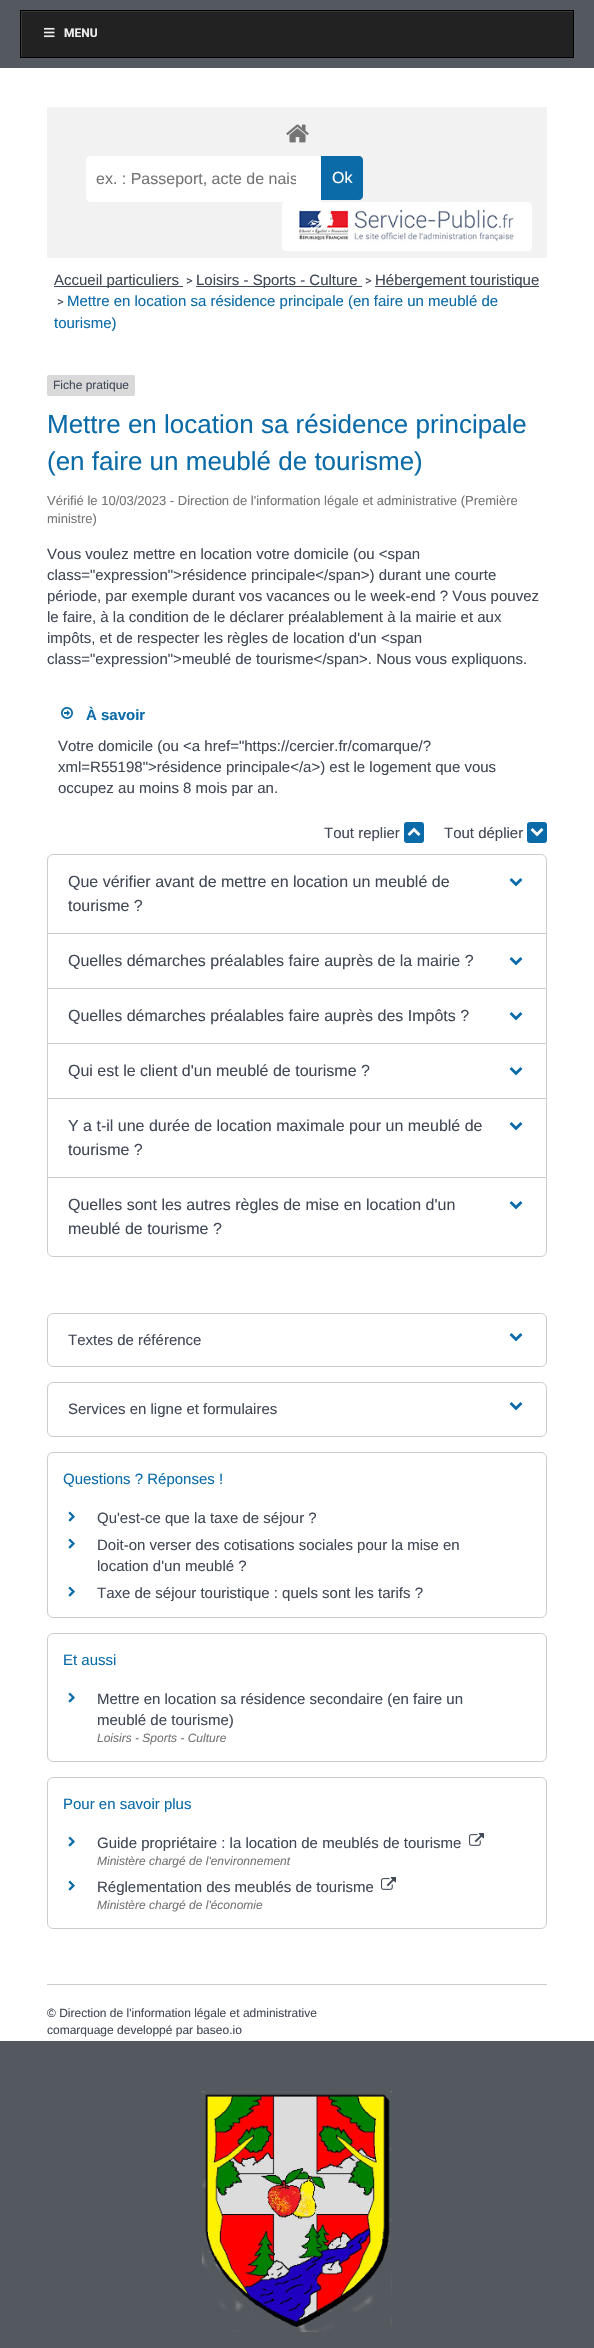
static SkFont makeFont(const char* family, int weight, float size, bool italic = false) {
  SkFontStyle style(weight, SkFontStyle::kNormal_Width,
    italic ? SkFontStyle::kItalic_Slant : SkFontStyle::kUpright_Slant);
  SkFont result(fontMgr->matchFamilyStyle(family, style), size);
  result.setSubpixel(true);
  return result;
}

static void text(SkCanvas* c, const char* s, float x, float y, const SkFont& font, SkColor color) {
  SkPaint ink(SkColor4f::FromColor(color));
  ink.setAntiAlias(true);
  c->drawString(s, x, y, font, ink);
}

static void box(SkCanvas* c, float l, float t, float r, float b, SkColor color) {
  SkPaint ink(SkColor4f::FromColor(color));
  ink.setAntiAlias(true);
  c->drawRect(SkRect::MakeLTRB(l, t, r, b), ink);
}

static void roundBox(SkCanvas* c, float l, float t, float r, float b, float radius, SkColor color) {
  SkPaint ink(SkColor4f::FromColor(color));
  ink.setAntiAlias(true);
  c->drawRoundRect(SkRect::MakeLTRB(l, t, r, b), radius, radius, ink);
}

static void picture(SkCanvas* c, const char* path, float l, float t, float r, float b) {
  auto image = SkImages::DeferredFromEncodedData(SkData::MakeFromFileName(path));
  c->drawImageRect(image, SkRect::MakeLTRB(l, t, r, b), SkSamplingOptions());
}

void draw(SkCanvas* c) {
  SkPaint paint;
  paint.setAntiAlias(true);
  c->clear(0xffffffff);
  box(c, 0, 0, 594, 68, 0xff54595f);
  box(c, 22, 12, 573, 57, 0xff222222);
  c->save();
  c->clipRect(SkRect::MakeLTRB(21, 11, 573, 57));
  paint.setColor(0xff383838);
  c->drawPath(SkPathBuilder(SkPathFillType::kEvenOdd).moveTo(-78, -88).lineTo(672, -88).lineTo(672, 156).lineTo(-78, 156).close().moveTo(22, 12).lineTo(574, 12).lineTo(574, 58).lineTo(22, 58).close().detach(), paint);
  c->restore();
  paint.setStyle(SkPaint::kStroke_Style);
  paint.setStrokeWidth(1);
  paint.setColor(0xff000000);
  c->drawRect(SkRect::MakeLTRB(20.5f, 10.5f, 573.5f, 57.5f), paint);
  picture(c, "img_01.png", 44, 27, 55, 38);
  SkFont face1 = makeFont("Roboto", 700, 12);
  text(c, "MENU", 64, 37, face1, 0xffeeeeee);
  box(c, 47, 107, 547, 258, 0xfff2f2f2);
  picture(c, "img_02.png", 286, 124, 309, 143);
  paint.setStyle(SkPaint::kFill_Style);
  paint.setColor(0xffffffff);
  c->drawPath(SkPathBuilder().moveTo(90, 156).lineTo(321, 156).lineTo(321, 202).lineTo(90, 202).cubicTo(88, 202, 86, 200, 86, 198).lineTo(86, 160).cubicTo(86, 158, 88, 156, 90, 156).close().detach(), paint);
  c->save();
  c->clipRect(SkRect::MakeLTRB(96, 170, 296, 188));
  SkFont face2 = makeFont("Liberation Sans", 400, 16);
  text(c, "ex. : Passeport, acte de nais", 96, 184, face2, 0xff757575);
  c->restore();
  paint.setColor(0xff0b6ba8);
  c->drawPath(SkPathBuilder().moveTo(321, 156).lineTo(359, 156).cubicTo(361, 156, 363, 158, 363, 160).lineTo(363, 196).cubicTo(363, 198, 361, 200, 359, 200).lineTo(321, 200).close().detach(), paint);
  text(c, "Ok", 332, 183, face2, 0xffffffff);
  roundBox(c, 282, 202, 532, 251, 4, 0xffffffff);
  picture(c, "img_03.png", 299, 207, 515, 243);
  box(c, 54, 286, 183, 287, 0xff414856);
  SkFont face3 = makeFont("Liberation Sans", 400, 15);
  text(c, "Accueil particuliers", 54, 285, face3, 0xff414856);
  SkFont face4 = makeFont("Roboto", 400, 13);
  text(c, ">", 186, 285, face4, 0xff414856);
  box(c, 196, 286, 362, 287, 0xff414856);
  text(c, "Loisirs - Sports - Culture", 196, 285, face3, 0xff414856);
  text(c, ">", 365, 285, face4, 0xff414856);
  box(c, 375, 286, 539, 287, 0xff414856);
  text(c, "Hébergement touristique", 375, 285, face3, 0xff414856);
  text(c, ">", 57, 306, face4, 0xff414856);
  text(c, "Mettre en location sa résidence principale (en faire un meublé de", 67, 306, face3, 0xff0b6ba8);
  text(c, "tourisme)", 54, 328, face3, 0xff0b6ba8);
  roundBox(c, 47, 375, 135, 396, 2, 0xffd9d9d9);
  SkFont face5 = makeFont("Liberation Sans", 400, 12);
  text(c, "Fiche pratique", 53, 389, face5, 0xff414856);
  SkFont face6 = makeFont("Liberation Sans", 400, 26);
  text(c, "Mettre en location sa résidence principale", 47, 433, face6, 0xff0b6ba8);
  text(c, "(en faire un meublé de tourisme)", 47, 470, face6, 0xff0b6ba8);
  SkFont face7 = makeFont("Liberation Sans", 400, 13);
  text(c, "Vérifié le 10/03/2023 - Direction de l'information légale et administrative (Première", 47, 505, face7, 0xff757575);
  text(c, "ministre)", 47, 523, face7, 0xff757575);
  text(c, "Vous voulez mettre en location votre domicile (ou <span", 47, 559, face3, 0xff414856);
  text(c, "class=\"expression\">résidence principale</span>) durant une courte", 47, 580, face3, 0xff414856);
  text(c, "période, par exemple durant vos vacances ou le week-end ? Vous pouvez", 47, 601, face3, 0xff414856);
  text(c, "le faire, à la condition de le déclarer préalablement à la mairie et aux", 47, 622, face3, 0xff414856);
  text(c, "impôts, et de respecter les règles de location d'un <span", 47, 643, face3, 0xff414856);
  text(c, "class=\"expression\">meublé de tourisme</span>. Nous vous expliquons.", 47, 664, face3, 0xff414856);
  picture(c, "img_04.png", 61, 707, 73, 719);
  SkFont face8 = makeFont("Liberation Sans", 700, 15);
  text(c, "À savoir", 86, 720, face8, 0xff0b6ba8);
  text(c, "Votre domicile (ou <a href=\"https://cercier.fr/comarque/?", 58, 751, face3, 0xff414856);
  text(c, "xml=R55198\">résidence principale</a>) est le logement que vous", 58, 772, face3, 0xff414856);
  text(c, "occupez au moins 8 mois par an.", 58, 793, face3, 0xff414856);
  text(c, "Tout replier", 324, 838, face3, 0xff414856);
  roundBox(c, 404, 822, 424, 843, 3, 0xff0b6ba8);
  picture(c, "img_05.png", 407, 827, 421, 836);
  text(c, "Tout déplier", 444, 838, face3, 0xff414856);
  roundBox(c, 527, 822, 547, 843, 3, 0xff0b6ba8);
  picture(c, "img_06.png", 530, 828, 544, 837);
  paint.setStyle(SkPaint::kStroke_Style);
  paint.setColor(0xffcccccc);
  c->drawRoundRect(SkRect::MakeLTRB(47.5f, 854.5f, 546.5f, 1256.5f), 5.5f, 5.5f, paint);
  text(c, "Que vérifier avant de mettre en location un meublé de", 68, 887, face2, 0xff414856);
  text(c, "tourisme ?", 68, 911, face2, 0xff414856);
  picture(c, "img_07.png", 509, 878, 523, 887);
  box(c, 48, 933, 546, 934, 0xffcccccc);
  text(c, "Quelles démarches préalables faire auprès de la mairie ?", 68, 966, face2, 0xff414856);
  picture(c, "img_07.png", 509, 957, 523, 966);
  box(c, 48, 988, 546, 989, 0xffcccccc);
  text(c, "Quelles démarches préalables faire auprès des Impôts ?", 68, 1021, face2, 0xff414856);
  picture(c, "img_07.png", 509, 1012, 523, 1021);
  box(c, 48, 1043, 546, 1044, 0xffcccccc);
  text(c, "Qui est le client d'un meublé de tourisme ?", 68, 1076, face2, 0xff414856);
  picture(c, "img_07.png", 509, 1067, 523, 1076);
  box(c, 48, 1098, 546, 1099, 0xffcccccc);
  text(c, "Y a t-il une durée de location maximale pour un meublé de", 68, 1131, face2, 0xff414856);
  text(c, "tourisme ?", 68, 1155, face2, 0xff414856);
  picture(c, "img_07.png", 509, 1122, 523, 1131);
  box(c, 48, 1177, 546, 1178, 0xffcccccc);
  text(c, "Quelles sont les autres règles de mise en location d'un", 68, 1210, face2, 0xff414856);
  text(c, "meublé de tourisme ?", 68, 1234, face2, 0xff414856);
  picture(c, "img_07.png", 509, 1201, 523, 1210);
  c->drawRoundRect(SkRect::MakeLTRB(47.5f, 1313.5f, 546.5f, 1366.5f), 5.5f, 5.5f, paint);
  text(c, "Textes de référence", 68, 1345, face3, 0xff414856);
  picture(c, "img_07.png", 509, 1333, 523, 1342);
  c->drawRoundRect(SkRect::MakeLTRB(47.5f, 1382.5f, 546.5f, 1436.5f), 5.5f, 5.5f, paint);
  text(c, "Services en ligne et formulaires", 68, 1414, face3, 0xff414856);
  picture(c, "img_07.png", 509, 1402, 523, 1411);
  c->drawRoundRect(SkRect::MakeLTRB(47.5f, 1452.5f, 546.5f, 1617.5f), 5.5f, 5.5f, paint);
  text(c, "Questions ? Réponses !", 63, 1484, face3, 0xff0b6ba8);
  picture(c, "img_08.png", 68, 1511, 75, 1522);
  text(c, "Qu'est-ce que la taxe de séjour ?", 97, 1523, face3, 0xff414856);
  picture(c, "img_08.png", 68, 1538, 75, 1549);
  text(c, "Doit-on verser des cotisations sociales pour la mise en", 97, 1550, face3, 0xff414856);
  text(c, "location d'un meublé ?", 97, 1571, face3, 0xff414856);
  picture(c, "img_08.png", 68, 1586, 75, 1597);
  text(c, "Taxe de séjour touristique : quels sont les tarifs ?", 97, 1598, face3, 0xff414856);
  c->drawRoundRect(SkRect::MakeLTRB(47.5f, 1633.5f, 546.5f, 1761.5f), 5.5f, 5.5f, paint);
  text(c, "Et aussi", 63, 1665, face3, 0xff0b6ba8);
  picture(c, "img_08.png", 68, 1692, 75, 1703);
  text(c, "Mettre en location sa résidence secondaire (en faire un", 97, 1704, face3, 0xff414856);
  text(c, "meublé de tourisme)", 97, 1725, face3, 0xff414856);
  SkFont face9 = makeFont("Liberation Sans", 400, 12, true);
  text(c, "Loisirs - Sports - Culture", 97, 1742, face9, 0xff757575);
  c->drawRoundRect(SkRect::MakeLTRB(47.5f, 1777.5f, 546.5f, 1928.5f), 5.5f, 5.5f, paint);
  text(c, "Pour en savoir plus", 63, 1809, face3, 0xff0b6ba8);
  picture(c, "img_08.png", 68, 1836, 75, 1847);
  text(c, "Guide propriétaire : la location de meublés de tourisme", 97, 1848, face3, 0xff414856);
  picture(c, "img_09.png", 469, 1833, 484, 1846);
  text(c, "Ministère chargé de l'environnement", 97, 1865, face9, 0xff757575);
  picture(c, "img_08.png", 68, 1880, 75, 1891);
  text(c, "Réglementation des meublés de tourisme", 97, 1892, face3, 0xff414856);
  picture(c, "img_09.png", 381, 1877, 396, 1890);
  text(c, "Ministère chargé de l'économie", 97, 1909, face9, 0xff757575);
  box(c, 47, 1984, 547, 1985, 0xffcccccc);
  text(c, "© Direction de l'information légale et administrative", 47, 2017, face5, 0xff414856);
  text(c, "comarquage developpé par baseo.io", 47, 2034, face5, 0xff414856);
  box(c, 0, 2041, 594, 2348, 0xff54595f);
  picture(c, "img_10.png", 202, 2091, 392, 2332);
}
